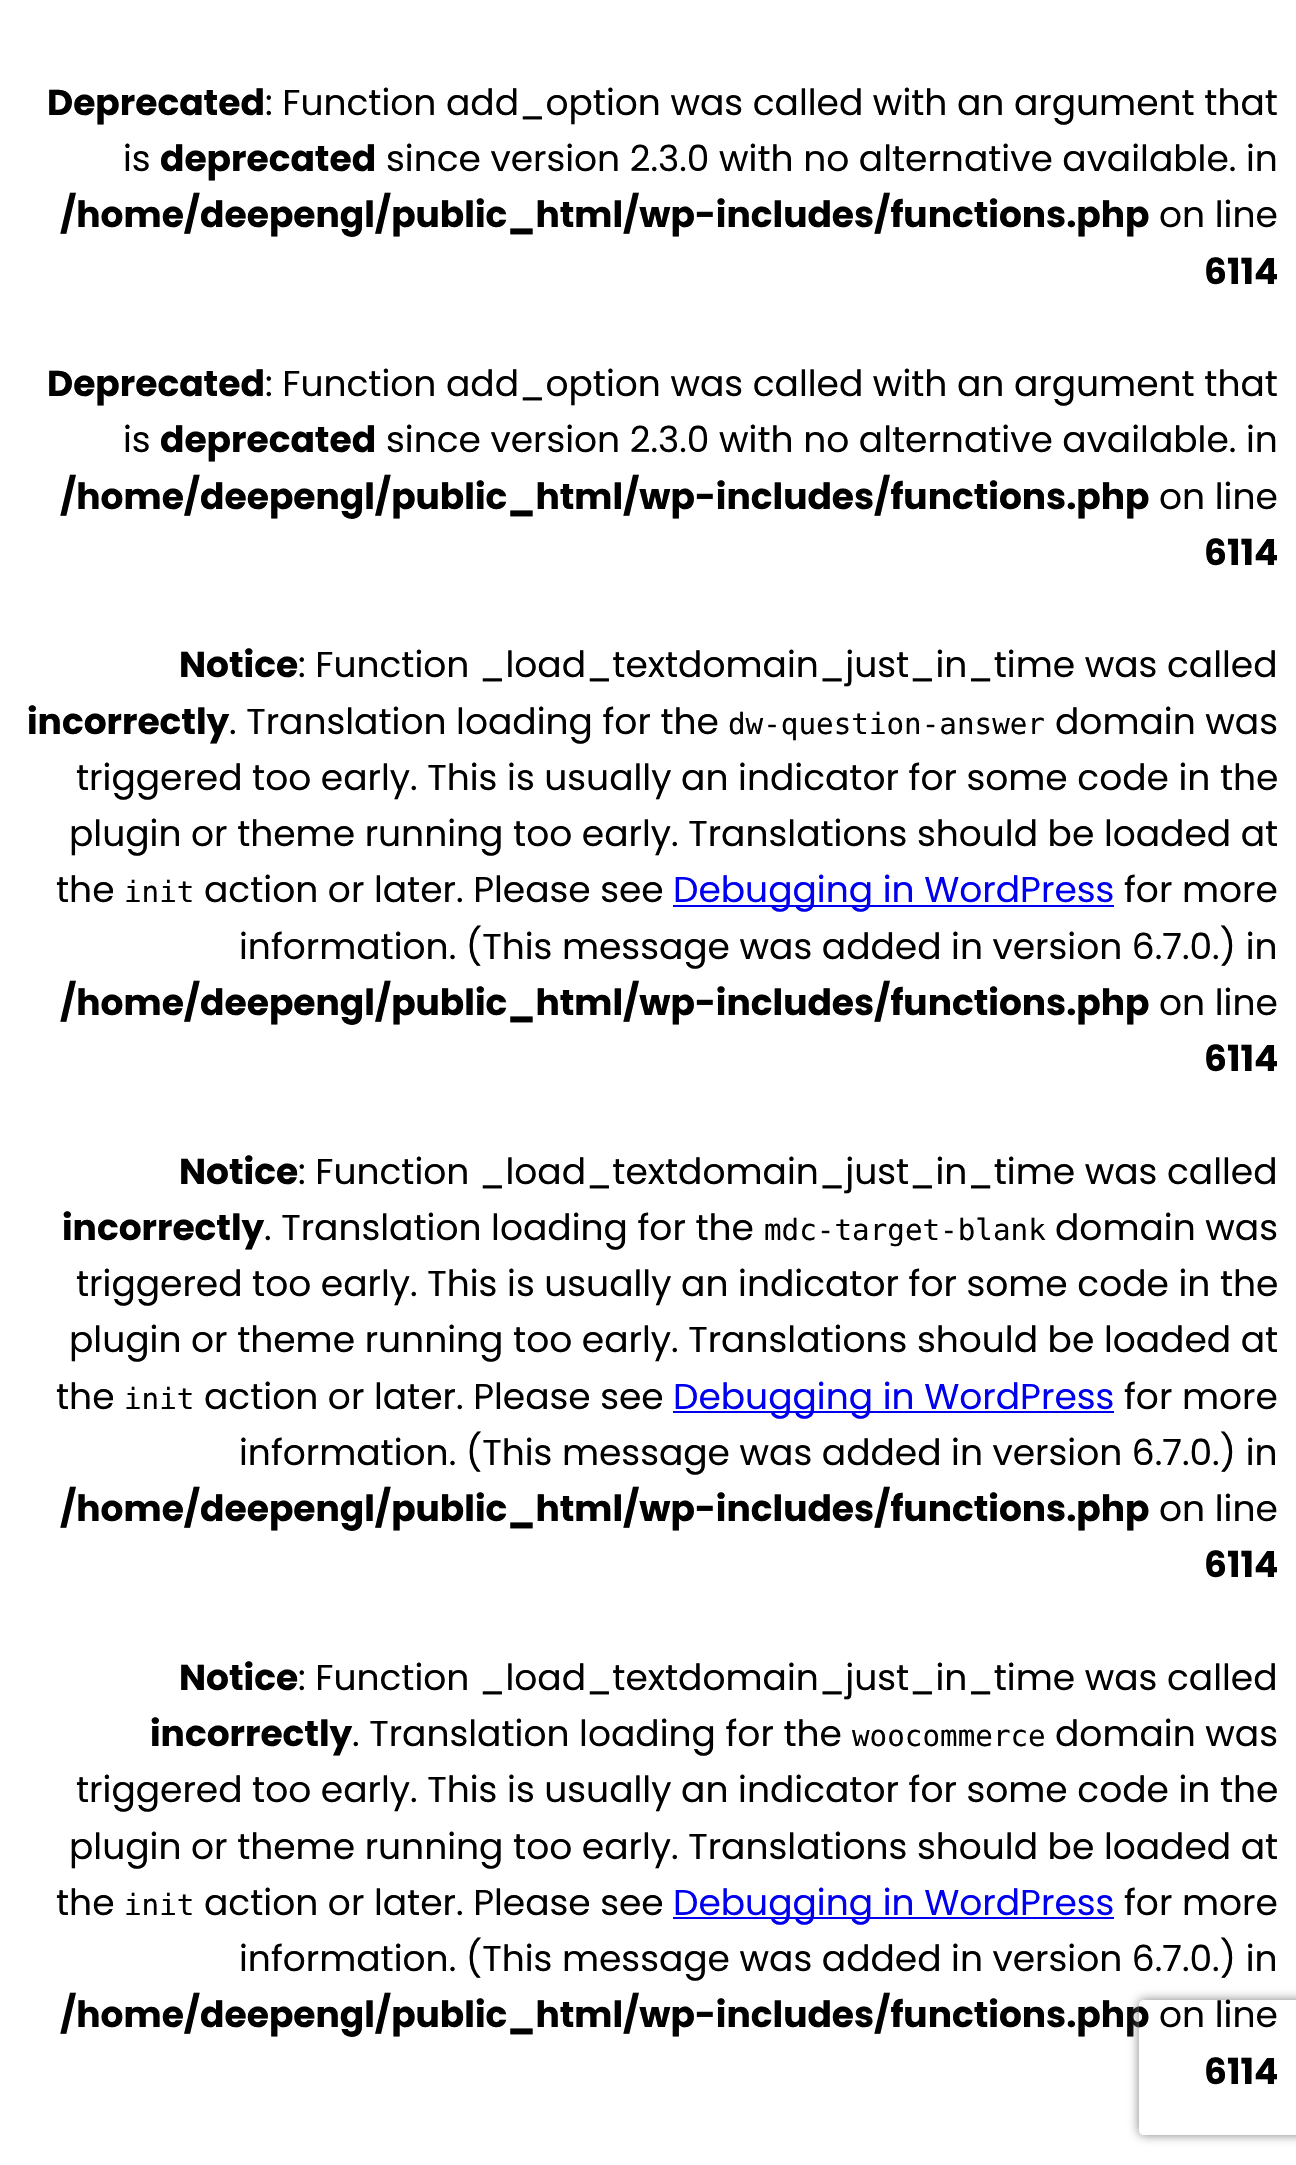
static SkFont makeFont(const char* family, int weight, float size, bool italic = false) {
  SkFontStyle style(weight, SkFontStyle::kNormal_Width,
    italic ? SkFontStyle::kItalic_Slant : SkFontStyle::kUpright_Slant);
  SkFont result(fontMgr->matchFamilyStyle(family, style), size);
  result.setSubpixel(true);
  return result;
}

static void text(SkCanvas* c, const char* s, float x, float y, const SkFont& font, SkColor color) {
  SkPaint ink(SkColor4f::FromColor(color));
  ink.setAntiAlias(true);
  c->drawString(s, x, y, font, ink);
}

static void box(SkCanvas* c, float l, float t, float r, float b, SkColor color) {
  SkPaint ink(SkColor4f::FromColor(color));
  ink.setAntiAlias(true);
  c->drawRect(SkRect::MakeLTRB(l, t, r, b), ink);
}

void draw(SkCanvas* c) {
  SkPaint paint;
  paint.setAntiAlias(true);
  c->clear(0xffffffff);
  SkFont face1 = makeFont("Poppins", 700, 36);
  text(c, "Deprecated", 47, 115, face1, 0xff000000);
  SkFont face2 = makeFont("Poppins", 400, 36);
  text(c, ": Function add_option was called with an argument that", 265, 115, face2, 0xff000000);
  text(c, "is", 123, 171, face2, 0xff000000);
  text(c, "deprecated", 160, 171, face1, 0xff000000);
  text(c, "since version 2.3.0 with no alternative available. in", 386, 171, face2, 0xff000000);
  text(c, "/home/deepengl/public_html/wp-includes/functions.php", 60, 227, face1, 0xff000000);
  text(c, "on line", 1159, 227, face2, 0xff000000);
  text(c, "6114", 1204, 284, face1, 0xff000000);
  text(c, "Deprecated", 47, 396, face1, 0xff000000);
  text(c, ": Function add_option was called with an argument that", 265, 396, face2, 0xff000000);
  text(c, "is", 123, 452, face2, 0xff000000);
  text(c, "deprecated", 160, 452, face1, 0xff000000);
  text(c, "since version 2.3.0 with no alternative available. in", 386, 452, face2, 0xff000000);
  text(c, "/home/deepengl/public_html/wp-includes/functions.php", 60, 509, face1, 0xff000000);
  text(c, "on line", 1159, 509, face2, 0xff000000);
  text(c, "6114", 1204, 565, face1, 0xff000000);
  text(c, "Notice", 179, 677, face1, 0xff000000);
  text(c, ": Function _load_textdomain_just_in_time was called", 298, 677, face2, 0xff000000);
  text(c, "incorrectly", 27, 734, face1, 0xff000000);
  text(c, ". Translation loading for the", 229, 734, face2, 0xff000000);
  SkFont face3 = makeFont("DejaVu Sans Mono", 400, 29.25f);
  text(c, "dw-question-answer", 728, 734, face3, 0xff000000);
  text(c, "domain was", 1055, 734, face2, 0xff000000);
  text(c, "triggered too early. This is usually an indicator for some code in the", 76, 790, face2, 0xff000000);
  text(c, "plugin or theme running too early. Translations should be loaded at", 69, 846, face2, 0xff000000);
  text(c, "the", 56, 902, face2, 0xff000000);
  text(c, "init", 124, 902, face3, 0xff000000);
  text(c, "action or later. Please see", 204, 902, face2, 0xff000000);
  box(c, 673, 905, 1114, 907, 0xff0000ee);
  text(c, "Debugging in WordPress", 673, 902, face2, 0xff0000ee);
  text(c, "for more", 1124, 902, face2, 0xff000000);
  text(c, "information. (This message was added in version 6.7.0.) in", 239, 959, face2, 0xff000000);
  text(c, "/home/deepengl/public_html/wp-includes/functions.php", 60, 1015, face1, 0xff000000);
  text(c, "on line", 1159, 1015, face2, 0xff000000);
  text(c, "6114", 1204, 1071, face1, 0xff000000);
  text(c, "Notice", 179, 1184, face1, 0xff000000);
  text(c, ": Function _load_textdomain_just_in_time was called", 298, 1184, face2, 0xff000000);
  text(c, "incorrectly", 62, 1240, face1, 0xff000000);
  text(c, ". Translation loading for the", 264, 1240, face2, 0xff000000);
  text(c, "mdc-target-blank", 764, 1240, face3, 0xff000000);
  text(c, "domain was", 1055, 1240, face2, 0xff000000);
  text(c, "triggered too early. This is usually an indicator for some code in the", 76, 1296, face2, 0xff000000);
  text(c, "plugin or theme running too early. Translations should be loaded at", 69, 1352, face2, 0xff000000);
  text(c, "the", 56, 1409, face2, 0xff000000);
  text(c, "init", 124, 1409, face3, 0xff000000);
  text(c, "action or later. Please see", 204, 1409, face2, 0xff000000);
  box(c, 673, 1411, 1114, 1413, 0xff0000ee);
  text(c, "Debugging in WordPress", 673, 1409, face2, 0xff0000ee);
  text(c, "for more", 1124, 1409, face2, 0xff000000);
  text(c, "information. (This message was added in version 6.7.0.) in", 239, 1465, face2, 0xff000000);
  text(c, "/home/deepengl/public_html/wp-includes/functions.php", 60, 1521, face1, 0xff000000);
  text(c, "on line", 1159, 1521, face2, 0xff000000);
  text(c, "6114", 1204, 1577, face1, 0xff000000);
  text(c, "Notice", 179, 1690, face1, 0xff000000);
  text(c, ": Function _load_textdomain_just_in_time was called", 298, 1690, face2, 0xff000000);
  text(c, "incorrectly", 150, 1746, face1, 0xff000000);
  text(c, ". Translation loading for the", 352, 1746, face2, 0xff000000);
  text(c, "woocommerce", 852, 1746, face3, 0xff000000);
  text(c, "domain was", 1055, 1746, face2, 0xff000000);
  text(c, "triggered too early. This is usually an indicator for some code in the", 76, 1802, face2, 0xff000000);
  text(c, "plugin or theme running too early. Translations should be loaded at", 69, 1859, face2, 0xff000000);
  text(c, "the", 56, 1915, face2, 0xff000000);
  text(c, "init", 124, 1915, face3, 0xff000000);
  text(c, "action or later. Please see", 204, 1915, face2, 0xff000000);
  box(c, 673, 1917, 1114, 1919, 0xff0000ee);
  text(c, "Debugging in WordPress", 673, 1915, face2, 0xff0000ee);
  text(c, "for more", 1124, 1915, face2, 0xff000000);
  text(c, "information. (This message was added in version 6.7.0.) in", 239, 1971, face2, 0xff000000);
  text(c, "/home/deepengl/public_html/wp-includes/functions.php", 60, 2027, face1, 0xff000000);
  c->save();
  c->clipPath(SkPathBuilder(SkPathFillType::kEvenOdd).moveTo(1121, 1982).lineTo(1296, 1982).lineTo(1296, 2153).lineTo(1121, 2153).close().moveTo(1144, 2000).lineTo(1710, 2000).cubicTo(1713, 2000, 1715, 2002, 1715, 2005).lineTo(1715, 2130).cubicTo(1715, 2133, 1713, 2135, 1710, 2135).lineTo(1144, 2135).cubicTo(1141, 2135, 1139, 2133, 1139, 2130).lineTo(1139, 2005).cubicTo(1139, 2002, 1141, 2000, 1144, 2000).close().detach(), true);
  paint.setColor(0xff808080);
  paint.setMaskFilter(SkMaskFilter::MakeBlur(kNormal_SkBlurStyle, 5.5f));
  c->drawRoundRect(SkRect::MakeLTRB(1139, 2000, 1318, 2135), 5, 5, paint);
  paint.setMaskFilter(nullptr);
  c->restore();
  text(c, "on line", 1159, 2027, face2, 0xff000000);
  text(c, "6114", 1204, 2084, face1, 0xff000000);
}
